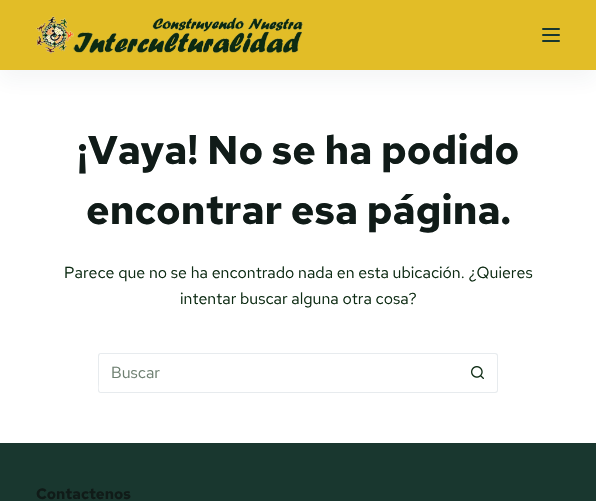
static SkFont makeFont(const char* family, int weight, float size, bool italic = false) {
  SkFontStyle style(weight, SkFontStyle::kNormal_Width,
    italic ? SkFontStyle::kItalic_Slant : SkFontStyle::kUpright_Slant);
  SkFont result(fontMgr->matchFamilyStyle(family, style), size);
  result.setSubpixel(true);
  return result;
}

static void text(SkCanvas* c, const char* s, float x, float y, const SkFont& font, SkColor color) {
  SkPaint ink(SkColor4f::FromColor(color));
  ink.setAntiAlias(true);
  c->drawString(s, x, y, font, ink);
}

static void box(SkCanvas* c, float l, float t, float r, float b, SkColor color) {
  SkPaint ink(SkColor4f::FromColor(color));
  ink.setAntiAlias(true);
  c->drawRect(SkRect::MakeLTRB(l, t, r, b), ink);
}

static void roundBox(SkCanvas* c, float l, float t, float r, float b, float radius, SkColor color) {
  SkPaint ink(SkColor4f::FromColor(color));
  ink.setAntiAlias(true);
  c->drawRoundRect(SkRect::MakeLTRB(l, t, r, b), radius, radius, ink);
}

static void picture(SkCanvas* c, const char* path, float l, float t, float r, float b) {
  auto image = SkImages::DeferredFromEncodedData(SkData::MakeFromFileName(path));
  c->drawImageRect(image, SkRect::MakeLTRB(l, t, r, b), SkSamplingOptions());
}

void draw(SkCanvas* c) {
  SkPaint paint;
  paint.setAntiAlias(true);
  c->clear(0xffffffff);
  paint.setColor(0x0d2b3d4f);
  paint.setMaskFilter(SkMaskFilter::MakeBlur(kNormal_SkBlurStyle, 10));
  c->drawRect(SkRect::MakeLTRB(0, 10, 596, 80), paint);
  paint.setMaskFilter(nullptr);
  box(c, 0, 0, 596, 70, 0xffe2bd27);
  picture(c, "img_01.png", 36, 16, 303, 54);
  roundBox(c, 542, 28, 560, 30, 1, 0xff19372f);
  roundBox(c, 542, 34, 560, 36, 1, 0xff19372f);
  roundBox(c, 542, 40, 560, 42, 1, 0xff19372f);
  SkFont face1 = makeFont("Red Hat Text", 700, 40);
  text(c, "¡Vaya! No se ha podido", 77, 164, face1, 0xff101b18);
  text(c, "encontrar esa página.", 86, 224, face1, 0xff101b18);
  SkFont face2 = makeFont("Red Hat Text", 400, 16);
  text(c, "Parece que no se ha encontrado nada en esta ubicación. ¿Quieres", 64, 278, face2, 0xff0d2b13);
  text(c, "intentar buscar alguna otra cosa?", 180, 304, face2, 0xff0d2b13);
  paint.setColor(0xffe7ebee);
  c->drawPath(SkPathBuilder(SkPathFillType::kEvenOdd).moveTo(101, 353).lineTo(458, 353).lineTo(458, 393).lineTo(101, 393).cubicTo(99, 393, 98, 392, 98, 390).lineTo(98, 356).cubicTo(98, 354, 99, 353, 101, 353).close().moveTo(101, 354).lineTo(458, 354).lineTo(458, 392).lineTo(100, 392).cubicTo(98, 390, 99, 385, 99, 384).lineTo(99, 356).lineTo(100, 354).close().detach(), paint);
  text(c, "Buscar", 111, 378, face2, 0xff6e8071);
  c->drawPath(SkPathBuilder(SkPathFillType::kEvenOdd).moveTo(458, 353).lineTo(495, 353).cubicTo(497, 353, 498, 354, 498, 356).lineTo(498, 390).cubicTo(498, 392, 497, 393, 495, 393).lineTo(458, 393).close().moveTo(458, 354).lineTo(495, 354).cubicTo(496, 354, 497, 355, 497, 356).lineTo(497, 390).cubicTo(497, 391, 496, 392, 495, 392).lineTo(458, 392).close().detach(), paint);
  picture(c, "img_02.png", 471, 366, 484, 379);
  box(c, 0, 443, 596, 501, 0xff19372f);
  SkFont face3 = makeFont("Red Hat Text", 700, 15);
  text(c, "Contactenos", 36, 499, face3, 0xff101b18);
}
